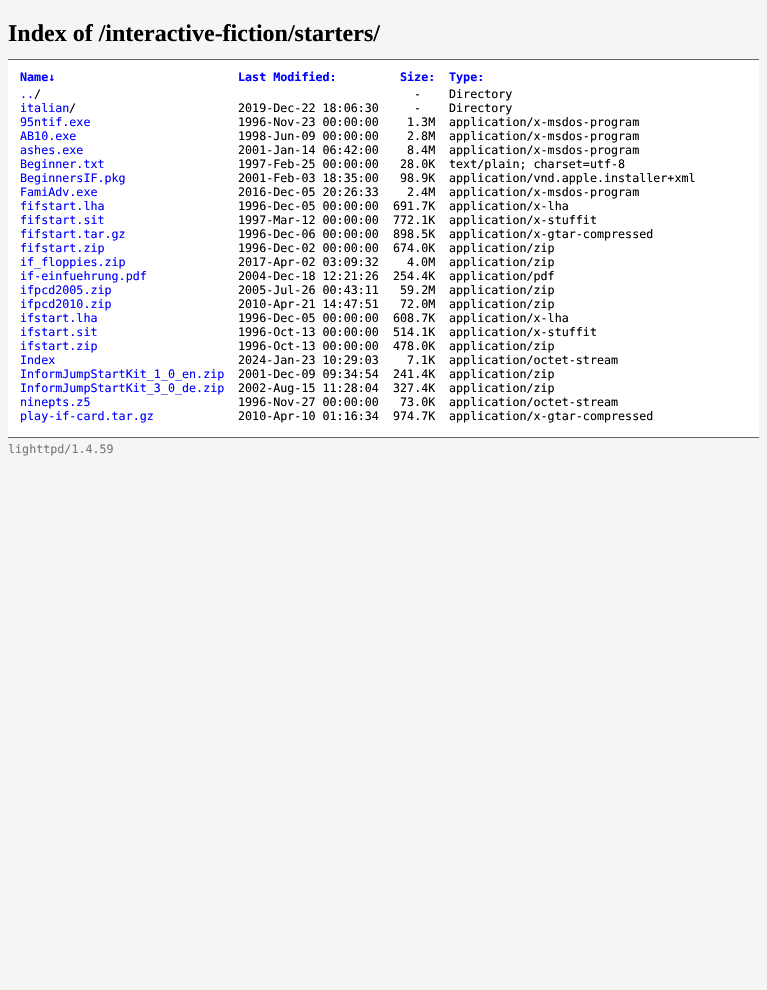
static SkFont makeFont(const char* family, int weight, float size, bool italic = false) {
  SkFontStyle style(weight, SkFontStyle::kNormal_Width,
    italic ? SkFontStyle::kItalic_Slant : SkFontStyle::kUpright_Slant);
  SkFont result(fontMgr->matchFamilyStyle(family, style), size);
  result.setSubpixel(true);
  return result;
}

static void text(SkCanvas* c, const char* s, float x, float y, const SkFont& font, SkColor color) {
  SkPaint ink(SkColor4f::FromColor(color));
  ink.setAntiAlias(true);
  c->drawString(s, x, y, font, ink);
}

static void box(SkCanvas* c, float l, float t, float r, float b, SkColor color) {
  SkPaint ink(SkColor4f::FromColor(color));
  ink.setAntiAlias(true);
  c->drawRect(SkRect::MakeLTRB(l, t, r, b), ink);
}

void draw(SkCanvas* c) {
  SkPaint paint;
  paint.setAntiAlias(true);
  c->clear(0xfff5f5f5);
  SkFont face1 = makeFont("Liberation Serif", 700, 24);
  text(c, "Index of /interactive-fiction/starters/", 8, 41, face1, 0xff000000);
  box(c, 8, 60, 759, 437, 0xffffffff);
  box(c, 8, 59, 759, 60, 0xff646464);
  box(c, 8, 437, 759, 438, 0xff646464);
  SkFont face2 = makeFont("DejaVu Sans Mono", 700, 11.7f);
  text(c, "Name↓", 20, 81, face2, 0xff0000ff);
  text(c, "Last Modified:", 238, 81, face2, 0xff0000ff);
  text(c, "Size:", 400, 81, face2, 0xff0000ff);
  text(c, "Type:", 449, 81, face2, 0xff0000ff);
  SkFont face3 = makeFont("DejaVu Sans Mono", 400, 11.7f);
  text(c, "..", 20, 98, face3, 0xff0000ff);
  text(c, "/", 34, 98, face3, 0xff000000);
  text(c, "-", 414, 98, face3, 0xff000000);
  text(c, "Directory", 449, 98, face3, 0xff000000);
  text(c, "italian", 20, 112, face3, 0xff0000ff);
  text(c, "/", 69, 112, face3, 0xff000000);
  text(c, "2019-Dec-22 18:06:30", 238, 112, face3, 0xff000000);
  text(c, "-", 414, 112, face3, 0xff000000);
  text(c, "Directory", 449, 112, face3, 0xff000000);
  text(c, "95ntif.exe", 20, 126, face3, 0xff0000ff);
  text(c, "1996-Nov-23 00:00:00", 238, 126, face3, 0xff000000);
  text(c, "1.3M", 407, 126, face3, 0xff000000);
  text(c, "application/x-msdos-program", 449, 126, face3, 0xff000000);
  text(c, "AB10.exe", 20, 140, face3, 0xff0000ff);
  text(c, "1998-Jun-09 00:00:00", 238, 140, face3, 0xff000000);
  text(c, "2.8M", 407, 140, face3, 0xff000000);
  text(c, "application/x-msdos-program", 449, 140, face3, 0xff000000);
  text(c, "ashes.exe", 20, 154, face3, 0xff0000ff);
  text(c, "2001-Jan-14 06:42:00", 238, 154, face3, 0xff000000);
  text(c, "8.4M", 407, 154, face3, 0xff000000);
  text(c, "application/x-msdos-program", 449, 154, face3, 0xff000000);
  text(c, "Beginner.txt", 20, 168, face3, 0xff0000ff);
  text(c, "1997-Feb-25 00:00:00", 238, 168, face3, 0xff000000);
  text(c, "28.0K", 400, 168, face3, 0xff000000);
  text(c, "text/plain; charset=utf-8", 449, 168, face3, 0xff000000);
  text(c, "BeginnersIF.pkg", 20, 182, face3, 0xff0000ff);
  text(c, "2001-Feb-03 18:35:00", 238, 182, face3, 0xff000000);
  text(c, "98.9K", 400, 182, face3, 0xff000000);
  text(c, "application/vnd.apple.installer+xml", 449, 182, face3, 0xff000000);
  text(c, "FamiAdv.exe", 20, 196, face3, 0xff0000ff);
  text(c, "2016-Dec-05 20:26:33", 238, 196, face3, 0xff000000);
  text(c, "2.4M", 407, 196, face3, 0xff000000);
  text(c, "application/x-msdos-program", 449, 196, face3, 0xff000000);
  text(c, "fifstart.lha", 20, 210, face3, 0xff0000ff);
  text(c, "1996-Dec-05 00:00:00", 238, 210, face3, 0xff000000);
  text(c, "691.7K", 393, 210, face3, 0xff000000);
  text(c, "application/x-lha", 449, 210, face3, 0xff000000);
  text(c, "fifstart.sit", 20, 224, face3, 0xff0000ff);
  text(c, "1997-Mar-12 00:00:00", 238, 224, face3, 0xff000000);
  text(c, "772.1K", 393, 224, face3, 0xff000000);
  text(c, "application/x-stuffit", 449, 224, face3, 0xff000000);
  text(c, "fifstart.tar.gz", 20, 238, face3, 0xff0000ff);
  text(c, "1996-Dec-06 00:00:00", 238, 238, face3, 0xff000000);
  text(c, "898.5K", 393, 238, face3, 0xff000000);
  text(c, "application/x-gtar-compressed", 449, 238, face3, 0xff000000);
  text(c, "fifstart.zip", 20, 252, face3, 0xff0000ff);
  text(c, "1996-Dec-02 00:00:00", 238, 252, face3, 0xff000000);
  text(c, "674.0K", 393, 252, face3, 0xff000000);
  text(c, "application/zip", 449, 252, face3, 0xff000000);
  text(c, "if_floppies.zip", 20, 266, face3, 0xff0000ff);
  text(c, "2017-Apr-02 03:09:32", 238, 266, face3, 0xff000000);
  text(c, "4.0M", 407, 266, face3, 0xff000000);
  text(c, "application/zip", 449, 266, face3, 0xff000000);
  text(c, "if-einfuehrung.pdf", 20, 280, face3, 0xff0000ff);
  text(c, "2004-Dec-18 12:21:26", 238, 280, face3, 0xff000000);
  text(c, "254.4K", 393, 280, face3, 0xff000000);
  text(c, "application/pdf", 449, 280, face3, 0xff000000);
  text(c, "ifpcd2005.zip", 20, 294, face3, 0xff0000ff);
  text(c, "2005-Jul-26 00:43:11", 238, 294, face3, 0xff000000);
  text(c, "59.2M", 400, 294, face3, 0xff000000);
  text(c, "application/zip", 449, 294, face3, 0xff000000);
  text(c, "ifpcd2010.zip", 20, 308, face3, 0xff0000ff);
  text(c, "2010-Apr-21 14:47:51", 238, 308, face3, 0xff000000);
  text(c, "72.0M", 400, 308, face3, 0xff000000);
  text(c, "application/zip", 449, 308, face3, 0xff000000);
  text(c, "ifstart.lha", 20, 322, face3, 0xff0000ff);
  text(c, "1996-Dec-05 00:00:00", 238, 322, face3, 0xff000000);
  text(c, "608.7K", 393, 322, face3, 0xff000000);
  text(c, "application/x-lha", 449, 322, face3, 0xff000000);
  text(c, "ifstart.sit", 20, 336, face3, 0xff0000ff);
  text(c, "1996-Oct-13 00:00:00", 238, 336, face3, 0xff000000);
  text(c, "514.1K", 393, 336, face3, 0xff000000);
  text(c, "application/x-stuffit", 449, 336, face3, 0xff000000);
  text(c, "ifstart.zip", 20, 350, face3, 0xff0000ff);
  text(c, "1996-Oct-13 00:00:00", 238, 350, face3, 0xff000000);
  text(c, "478.0K", 393, 350, face3, 0xff000000);
  text(c, "application/zip", 449, 350, face3, 0xff000000);
  text(c, "Index", 20, 364, face3, 0xff0000ff);
  text(c, "2024-Jan-23 10:29:03", 238, 364, face3, 0xff000000);
  text(c, "7.1K", 407, 364, face3, 0xff000000);
  text(c, "application/octet-stream", 449, 364, face3, 0xff000000);
  text(c, "InformJumpStartKit_1_0_en.zip", 20, 378, face3, 0xff0000ff);
  text(c, "2001-Dec-09 09:34:54", 238, 378, face3, 0xff000000);
  text(c, "241.4K", 393, 378, face3, 0xff000000);
  text(c, "application/zip", 449, 378, face3, 0xff000000);
  text(c, "InformJumpStartKit_3_0_de.zip", 20, 392, face3, 0xff0000ff);
  text(c, "2002-Aug-15 11:28:04", 238, 392, face3, 0xff000000);
  text(c, "327.4K", 393, 392, face3, 0xff000000);
  text(c, "application/zip", 449, 392, face3, 0xff000000);
  text(c, "ninepts.z5", 20, 406, face3, 0xff0000ff);
  text(c, "1996-Nov-27 00:00:00", 238, 406, face3, 0xff000000);
  text(c, "73.0K", 400, 406, face3, 0xff000000);
  text(c, "application/octet-stream", 449, 406, face3, 0xff000000);
  text(c, "play-if-card.tar.gz", 20, 420, face3, 0xff0000ff);
  text(c, "2010-Apr-10 01:16:34", 238, 420, face3, 0xff000000);
  text(c, "974.7K", 393, 420, face3, 0xff000000);
  text(c, "application/x-gtar-compressed", 449, 420, face3, 0xff000000);
  text(c, "lighttpd/1.4.59", 8, 453, face3, 0xff787878);
}
